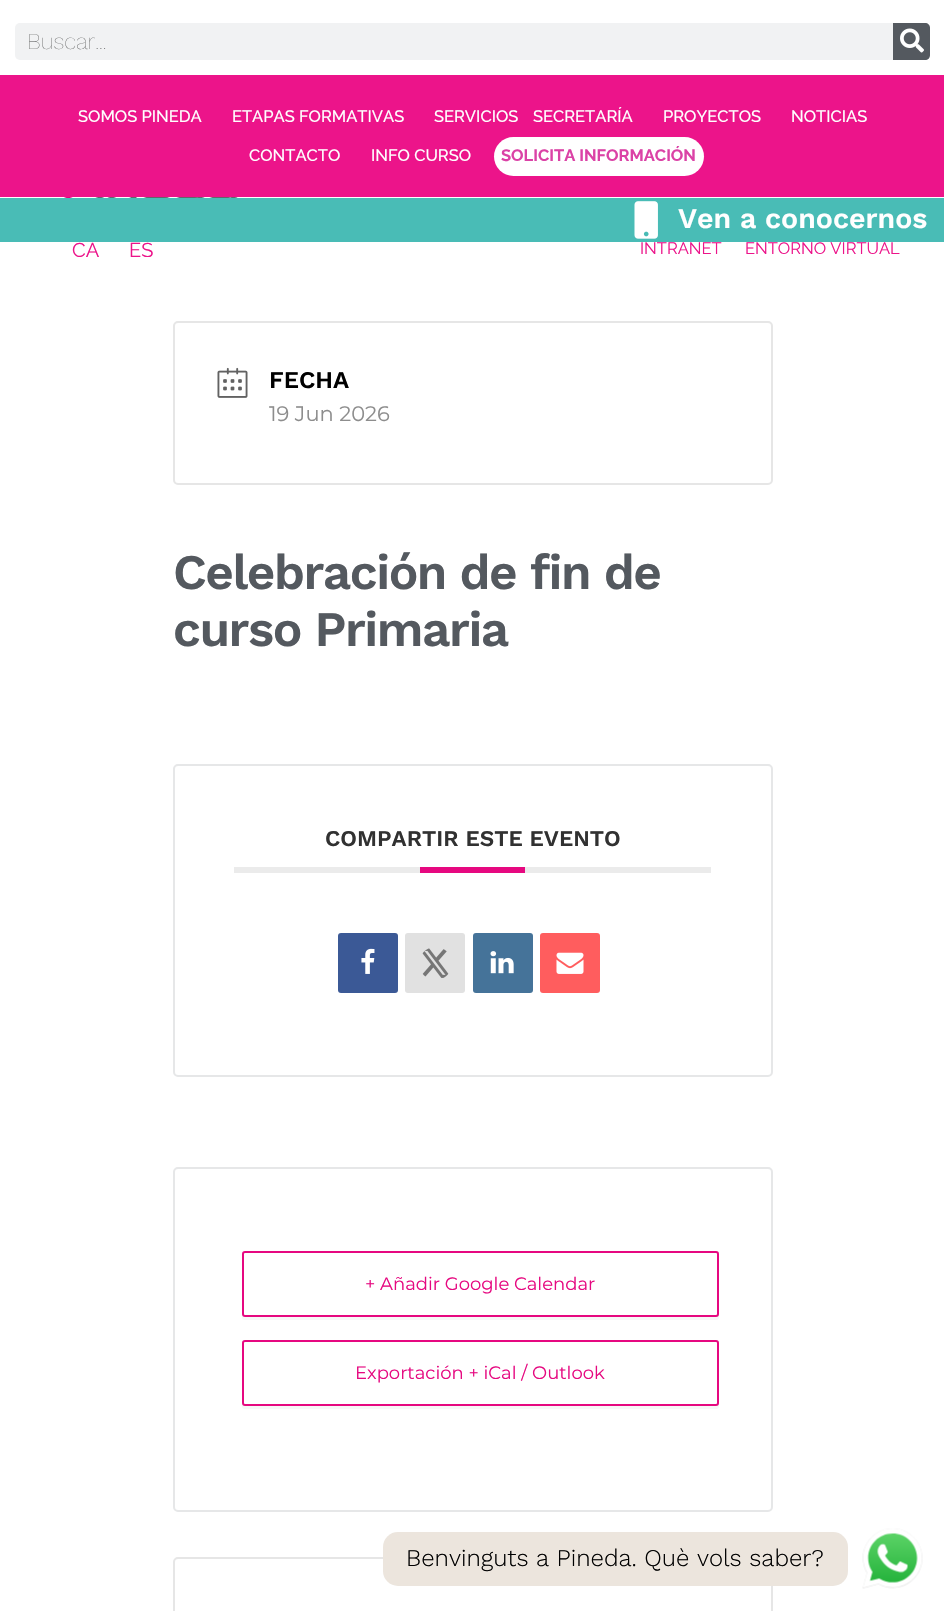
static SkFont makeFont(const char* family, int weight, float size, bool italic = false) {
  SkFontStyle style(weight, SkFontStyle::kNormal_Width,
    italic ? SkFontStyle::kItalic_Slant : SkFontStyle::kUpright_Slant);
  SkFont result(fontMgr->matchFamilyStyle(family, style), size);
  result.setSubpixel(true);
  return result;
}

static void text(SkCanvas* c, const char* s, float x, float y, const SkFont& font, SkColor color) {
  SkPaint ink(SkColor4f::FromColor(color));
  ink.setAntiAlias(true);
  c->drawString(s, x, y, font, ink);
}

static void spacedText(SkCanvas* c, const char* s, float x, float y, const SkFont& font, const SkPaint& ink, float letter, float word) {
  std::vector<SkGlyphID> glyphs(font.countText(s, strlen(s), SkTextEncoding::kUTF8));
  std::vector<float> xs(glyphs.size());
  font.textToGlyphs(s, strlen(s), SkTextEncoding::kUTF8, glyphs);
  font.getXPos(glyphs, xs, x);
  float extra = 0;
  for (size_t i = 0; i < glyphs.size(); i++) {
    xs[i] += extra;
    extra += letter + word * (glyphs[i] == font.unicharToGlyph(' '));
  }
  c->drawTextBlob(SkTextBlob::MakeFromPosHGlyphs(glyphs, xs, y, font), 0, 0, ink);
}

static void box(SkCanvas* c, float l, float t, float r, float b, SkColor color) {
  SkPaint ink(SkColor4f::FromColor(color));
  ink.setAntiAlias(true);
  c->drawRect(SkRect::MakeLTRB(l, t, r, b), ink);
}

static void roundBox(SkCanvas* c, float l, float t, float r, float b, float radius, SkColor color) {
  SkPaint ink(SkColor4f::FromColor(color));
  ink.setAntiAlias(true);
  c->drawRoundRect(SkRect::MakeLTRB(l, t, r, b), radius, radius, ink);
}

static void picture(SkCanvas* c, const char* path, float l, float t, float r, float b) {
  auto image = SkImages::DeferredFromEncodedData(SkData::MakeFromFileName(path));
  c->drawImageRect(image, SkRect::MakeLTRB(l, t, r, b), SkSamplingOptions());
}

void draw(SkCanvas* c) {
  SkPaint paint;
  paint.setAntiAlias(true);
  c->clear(0xffffffff);
  roundBox(c, 15, 23, 930, 60, 5, 0xfff1f2f3);
  SkFont face1 = makeFont("Work Sans", 100, 22.5f);
  text(c, "Buscar...", 27, 49, face1, 0xff606161);
  paint.setColor(0xff54595f);
  c->drawPath(SkPathBuilder().moveTo(893, 23).lineTo(925, 23).cubicTo(928, 23, 930, 25, 930, 28).lineTo(930, 55).cubicTo(930, 58, 928, 60, 925, 60).lineTo(893, 60).close().detach(), paint);
  picture(c, "img_01.png", 900, 28, 924, 53);
  box(c, 0, 75, 944, 197, 0xffec148a);
  SkFont face2 = makeFont("Raleway", 500, 16.5f);
  text(c, "SOMOS PINEDA", 78, 122, face2, 0xffffffff);
  text(c, "ETAPAS FORMATIVAS", 232, 122, face2, 0xffffffff);
  text(c, "SERVICIOS", 434, 122, face2, 0xffffffff);
  text(c, "SECRETARÍA", 533, 122, face2, 0xffffffff);
  text(c, "PROYECTOS", 663, 122, face2, 0xffffffff);
  text(c, "NOTICIAS", 791, 122, face2, 0xffffffff);
  text(c, "CONTACTO", 249, 161, face2, 0xffffffff);
  text(c, "INFO CURSO", 371, 161, face2, 0xffffffff);
  roundBox(c, 494, 137, 704, 176, 19.5f, 0xffffffff);
  SkFont face3 = makeFont("Raleway", 700, 16.5f);
  text(c, "SOLICITA INFORMACIÓN", 501, 161, face3, 0xffdb42a6);
  box(c, 0, 198, 944, 242, 0xff49bcb6);
  picture(c, "img_02.png", 634, 201, 658, 239);
  SkFont face4 = makeFont("Work Sans", 600, 28.5f);
  text(c, "Ven a conocernos", 678, 228, face4, 0xffffffff);
  picture(c, "img_03.png", 52, 197, 238, 198);
  SkFont face5 = makeFont("Raleway", 400, 20);
  text(c, "CA", 72, 257, face5, 0xffec148a);
  text(c, "ES", 129, 257, face5, 0xffec148a);
  SkFont face6 = makeFont("Raleway", 400, 16.5f);
  text(c, "INTRANET", 640, 254, face6, 0xffec148a);
  text(c, "ENTORNO VIRTUAL", 745, 254, face6, 0xffec148a);
  paint.setStyle(SkPaint::kStroke_Style);
  paint.setStrokeWidth(2);
  paint.setColor(0xffe6e6e6);
  c->drawRoundRect(SkRect::MakeLTRB(174, 322, 772, 484), 4, 4, paint);
  picture(c, "img_04.png", 217, 367, 248, 398);
  SkFont face7 = makeFont("Work Sans", 600, 24);
  text(c, "FECHA", 269, 388, face7, 0xff000000);
  SkFont face8 = makeFont("Montserrat", 400, 21);
  text(c, "19 Jun 2026", 269, 421, face8, 0xff8d8d8d);
  SkFont face9 = makeFont("Work Sans", 600, 49.5f);
  paint.setStyle(SkPaint::kFill_Style);
  paint.setColor(0xff54595f);
  spacedText(c, "Celebración de fin de", 173, 589, face9, paint, -1.5f, 0);
  spacedText(c, "curso Primaria", 173, 646, face9, paint, -1.5f, 0);
  paint.setStyle(SkPaint::kStroke_Style);
  paint.setColor(0xffe6e7e8);
  c->drawRoundRect(SkRect::MakeLTRB(174, 765, 772, 1076), 4, 4, paint);
  box(c, 234, 867, 711, 873, 0xffebebeb);
  SkFont face10 = makeFont("Work Sans", 600, 22.5f);
  text(c, "COMPARTIR ESTE EVENTO", 325, 846, face10, 0xff313131);
  box(c, 420, 867, 525, 873, 0xffe60880);
  roundBox(c, 338, 933, 398, 993, 3, 0xff3b5996);
  picture(c, "img_05.png", 361, 948, 375, 974);
  roundBox(c, 405, 933, 465, 993, 3, 0xffe1e1e1);
  picture(c, "img_06.png", 422, 948, 449, 978);
  roundBox(c, 473, 933, 533, 993, 3, 0xff457399);
  picture(c, "img_07.png", 490, 951, 514, 974);
  roundBox(c, 540, 933, 600, 993, 3, 0xffff5d5e);
  picture(c, "img_08.png", 556, 952, 584, 974);
  c->drawRoundRect(SkRect::MakeLTRB(174, 1168, 772, 1511), 4, 4, paint);
  paint.setStyle(SkPaint::kFill_Style);
  paint.setColor(0xfff7f7f7);
  c->drawPath(SkPathBuilder().moveTo(242, 1316).lineTo(242, 1317).cubicTo(242, 1319, 243, 1320, 245, 1320).lineTo(716, 1320).cubicTo(718, 1320, 719, 1319, 719, 1317).lineTo(719, 1257).lineTo(718, 1255).lineTo(718, 1314).cubicTo(718, 1316, 717, 1317, 716, 1317).lineTo(244, 1317).cubicTo(243, 1317, 243, 1316, 242, 1316).close().detach(), paint);
  paint.setColor(0xffffffff);
  c->drawRoundRect(SkRect::MakeLTRB(243, 1252, 718, 1316), 2, 2, paint);
  paint.setStyle(SkPaint::kStroke_Style);
  paint.setColor(0xffe60880);
  c->drawRoundRect(SkRect::MakeLTRB(243, 1252, 718, 1316), 2, 2, paint);
  SkFont face11 = makeFont("Montserrat", 400, 18);
  text(c, "+ Añadir Google Calendar", 365, 1290, face11, 0xffe60880);
  paint.setStyle(SkPaint::kFill_Style);
  paint.setColor(0xfff7f7f7);
  c->drawPath(SkPathBuilder().moveTo(242, 1404).lineTo(242, 1406).cubicTo(242, 1408, 243, 1409, 245, 1409).lineTo(716, 1409).cubicTo(718, 1409, 719, 1408, 719, 1406).lineTo(719, 1346).lineTo(718, 1344).lineTo(718, 1402).cubicTo(718, 1404, 717, 1406, 716, 1406).lineTo(244, 1406).cubicTo(243, 1406, 243, 1405, 242, 1404).close().detach(), paint);
  paint.setColor(0xffffffff);
  c->drawRoundRect(SkRect::MakeLTRB(243, 1341, 718, 1405), 2, 2, paint);
  paint.setStyle(SkPaint::kStroke_Style);
  paint.setColor(0xffe60880);
  c->drawRoundRect(SkRect::MakeLTRB(243, 1341, 718, 1405), 2, 2, paint);
  text(c, "Exportación + iCal / Outlook", 355, 1379, face11, 0xffe60880);
  paint.setColor(0xffe6e6e6);
  c->drawRoundRect(SkRect::MakeLTRB(174, 1558, 772, 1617), 4, 4, paint);
  roundBox(c, 383, 1532, 848, 1586, 15, 0xffece5dd);
  SkFont face12 = makeFont("Work Sans", 300, 24);
  text(c, "Benvinguts a Pineda. Què vols saber?", 406, 1566, face12, 0xff000000);
  picture(c, "img_09.png", 862, 1528, 923, 1589);
}
